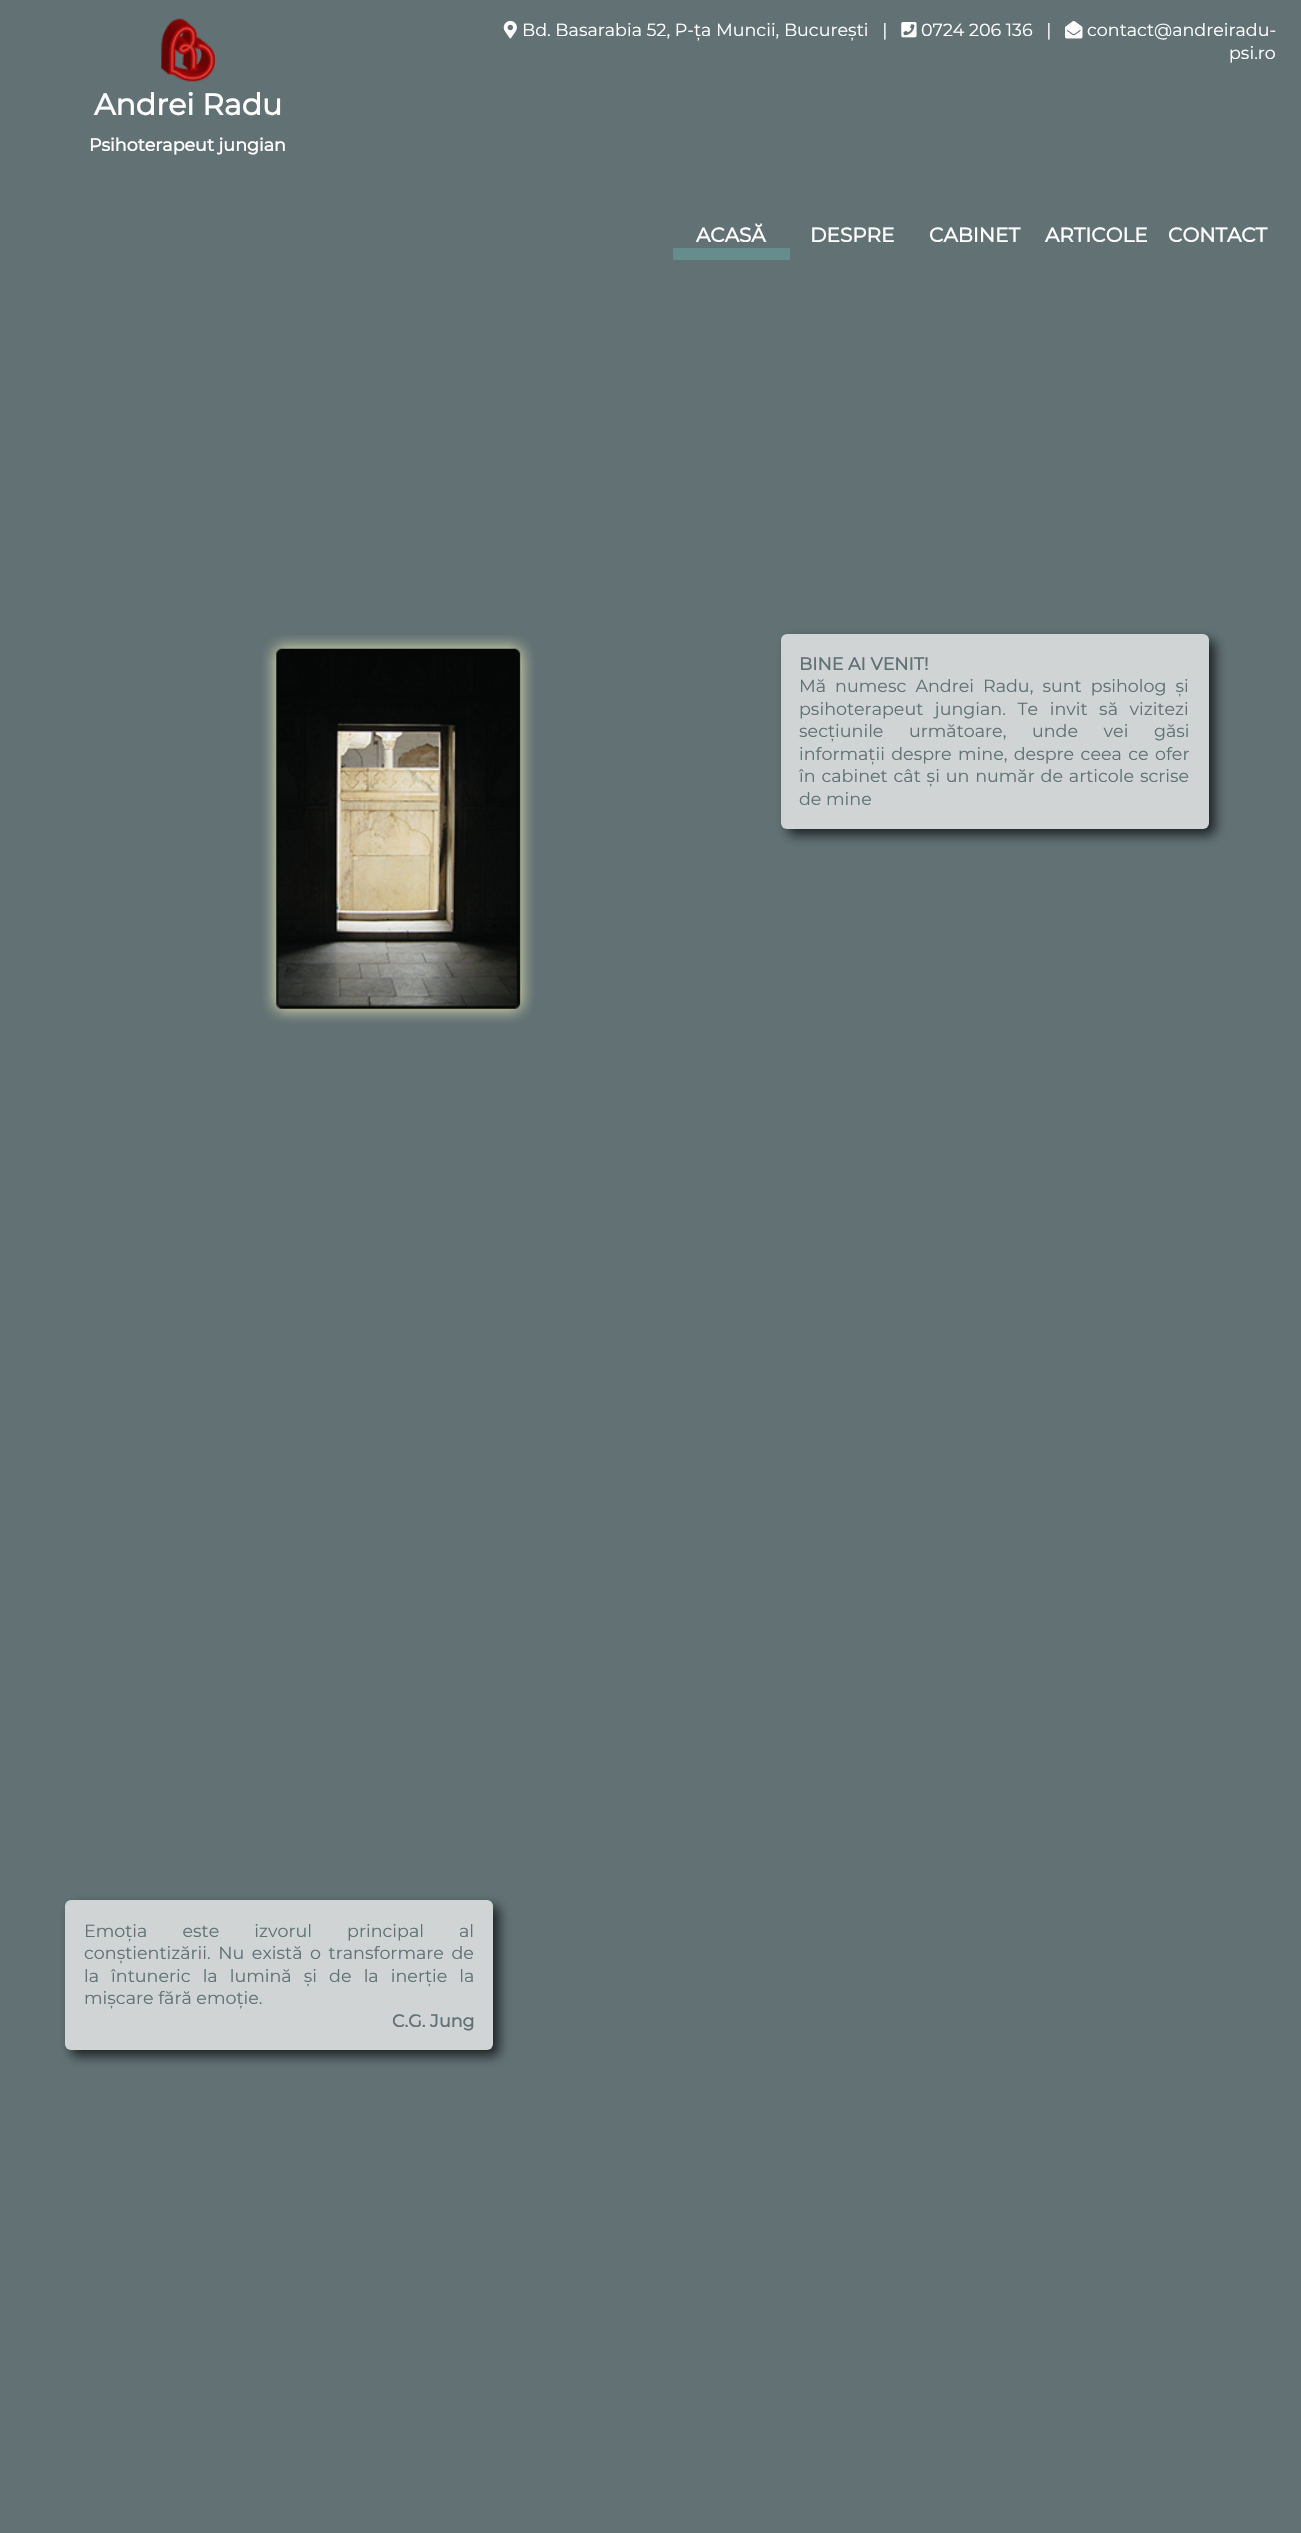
static SkFont makeFont(const char* family, int weight, float size, bool italic = false) {
  SkFontStyle style(weight, SkFontStyle::kNormal_Width,
    italic ? SkFontStyle::kItalic_Slant : SkFontStyle::kUpright_Slant);
  SkFont result(fontMgr->matchFamilyStyle(family, style), size);
  result.setSubpixel(true);
  return result;
}

static void text(SkCanvas* c, const char* s, float x, float y, const SkFont& font, SkColor color) {
  SkPaint ink(SkColor4f::FromColor(color));
  ink.setAntiAlias(true);
  c->drawString(s, x, y, font, ink);
}

static void spacedText(SkCanvas* c, const char* s, float x, float y, const SkFont& font, const SkPaint& ink, float letter, float word) {
  std::vector<SkGlyphID> glyphs(font.countText(s, strlen(s), SkTextEncoding::kUTF8));
  std::vector<float> xs(glyphs.size());
  font.textToGlyphs(s, strlen(s), SkTextEncoding::kUTF8, glyphs);
  font.getXPos(glyphs, xs, x);
  float extra = 0;
  for (size_t i = 0; i < glyphs.size(); i++) {
    xs[i] += extra;
    extra += letter + word * (glyphs[i] == font.unicharToGlyph(' '));
  }
  c->drawTextBlob(SkTextBlob::MakeFromPosHGlyphs(glyphs, xs, y, font), 0, 0, ink);
}

static void box(SkCanvas* c, float l, float t, float r, float b, SkColor color) {
  SkPaint ink(SkColor4f::FromColor(color));
  ink.setAntiAlias(true);
  c->drawRect(SkRect::MakeLTRB(l, t, r, b), ink);
}

static void roundBox(SkCanvas* c, float l, float t, float r, float b, float radius, SkColor color) {
  SkPaint ink(SkColor4f::FromColor(color));
  ink.setAntiAlias(true);
  c->drawRoundRect(SkRect::MakeLTRB(l, t, r, b), radius, radius, ink);
}

static void picture(SkCanvas* c, const char* path, float l, float t, float r, float b) {
  auto image = SkImages::DeferredFromEncodedData(SkData::MakeFromFileName(path));
  c->drawImageRect(image, SkRect::MakeLTRB(l, t, r, b), SkSamplingOptions());
}

void draw(SkCanvas* c) {
  SkPaint paint;
  paint.setAntiAlias(true);
  c->clear(0xff617174);
  picture(c, "img_01.png", 503, 20, 517, 39);
  SkFont face1 = makeFont("Montserrat", 400, 17.5f);
  text(c, "Bd. Basarabia 52, P-ța Muncii, București   |", 522, 36, face1, 0xffffffff);
  picture(c, "img_02.png", 901, 22, 917, 38);
  text(c, "0724 206 136   |", 921, 36, face1, 0xffffffff);
  picture(c, "img_03.png", 1065, 21, 1083, 39);
  text(c, "contact@andreiradu-", 1087, 36, face1, 0xffffffff);
  text(c, "psi.ro", 1229, 59, face1, 0xffffffff);
  picture(c, "img_04.png", 161, 18, 215, 82);
  SkFont face2 = makeFont("Montserrat", 700, 30);
  text(c, "Andrei Radu", 94, 115, face2, 0xffffffff);
  SkFont face3 = makeFont("Montserrat", 700, 17.5f);
  text(c, "Psihoterapeut jungian", 89, 151, face3, 0xffffffff);
  box(c, 673, 248, 790, 260, 0xff658d8d);
  SkFont face4 = makeFont("Montserrat", 700, 20);
  text(c, "ACASĂ", 696, 242, face4, 0xffffffff);
  text(c, "DESPRE", 810, 242, face4, 0xffffffff);
  text(c, "CABINET", 929, 242, face4, 0xffffffff);
  text(c, "ARTICOLE", 1045, 242, face4, 0xffffffff);
  text(c, "CONTACT", 1168, 242, face4, 0xffffffff);
  picture(c, "img_05.png", 262, 635, 534, 1023);
  paint.setColor(0xff1d2223);
  paint.setMaskFilter(SkMaskFilter::MakeBlur(kNormal_SkBlurStyle, 6));
  c->drawRoundRect(SkRect::MakeLTRB(788, 640, 1215, 835), 6, 6, paint);
  paint.setMaskFilter(nullptr);
  roundBox(c, 781, 634, 1209, 829, 6, 0xffd0d4d5);
  text(c, "BINE AI VENIT!", 799, 670, face3, 0xff617174);
  paint.setColor(0xff617174);
  spacedText(c, "Mă numesc Andrei Radu, sunt psiholog și", 799, 692, face1, paint, 0, 4.5f);
  spacedText(c, "psihoterapeut jungian. Te invit să vizitezi", 799, 715, face1, paint, 0, 7);
  spacedText(c, "secțiunile următoare, unde vei găsi", 799, 737, face1, paint, 0, 21);
  spacedText(c, "informații despre mine, despre ceea ce ofer", 799, 760, face1, paint, 0, 1.75f);
  spacedText(c, "în cabinet cât și un număr de articole scrise", 799, 782, face1, paint, 0, 1.25f);
  text(c, "de mine", 799, 805, face1, 0xff617174);
  paint.setColor(0xff1d2223);
  paint.setMaskFilter(SkMaskFilter::MakeBlur(kNormal_SkBlurStyle, 6));
  c->drawRoundRect(SkRect::MakeLTRB(71, 1906, 499, 2056), 6, 6, paint);
  paint.setMaskFilter(nullptr);
  roundBox(c, 65, 1900, 493, 2050, 6, 0xffd0d4d5);
  paint.setColor(0xff617174);
  spacedText(c, "Emoția este izvorul principal al", 84, 1937, face1, paint, 0, 30.5f);
  spacedText(c, "conștientizării. Nu există o transformare de", 84, 1959, face1, paint, 0, 3);
  spacedText(c, "la întuneric la lumină și de la inerție la", 84, 1982, face1, paint, 0, 7.5f);
  text(c, "mișcare fără emoție.", 84, 2004, face1, 0xff617174);
  text(c, "C.G. Jung", 392, 2027, face3, 0xff617174);
}
